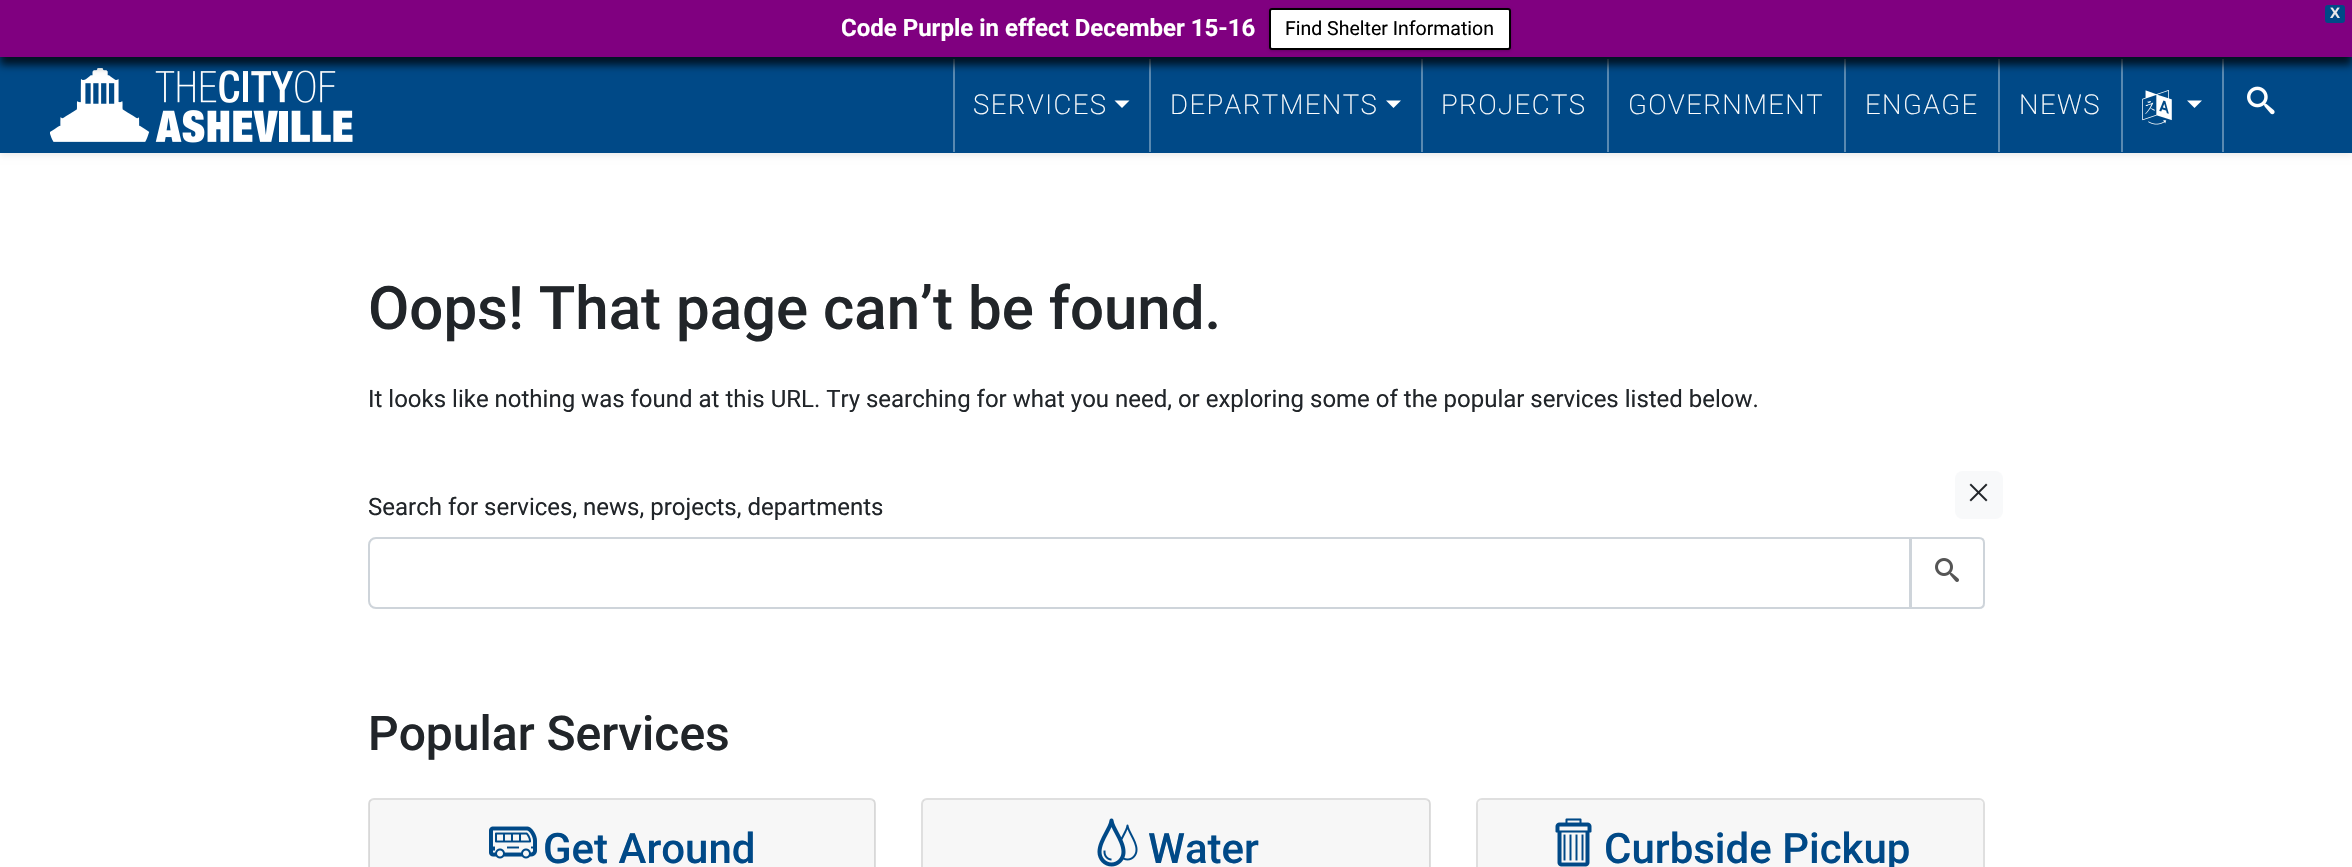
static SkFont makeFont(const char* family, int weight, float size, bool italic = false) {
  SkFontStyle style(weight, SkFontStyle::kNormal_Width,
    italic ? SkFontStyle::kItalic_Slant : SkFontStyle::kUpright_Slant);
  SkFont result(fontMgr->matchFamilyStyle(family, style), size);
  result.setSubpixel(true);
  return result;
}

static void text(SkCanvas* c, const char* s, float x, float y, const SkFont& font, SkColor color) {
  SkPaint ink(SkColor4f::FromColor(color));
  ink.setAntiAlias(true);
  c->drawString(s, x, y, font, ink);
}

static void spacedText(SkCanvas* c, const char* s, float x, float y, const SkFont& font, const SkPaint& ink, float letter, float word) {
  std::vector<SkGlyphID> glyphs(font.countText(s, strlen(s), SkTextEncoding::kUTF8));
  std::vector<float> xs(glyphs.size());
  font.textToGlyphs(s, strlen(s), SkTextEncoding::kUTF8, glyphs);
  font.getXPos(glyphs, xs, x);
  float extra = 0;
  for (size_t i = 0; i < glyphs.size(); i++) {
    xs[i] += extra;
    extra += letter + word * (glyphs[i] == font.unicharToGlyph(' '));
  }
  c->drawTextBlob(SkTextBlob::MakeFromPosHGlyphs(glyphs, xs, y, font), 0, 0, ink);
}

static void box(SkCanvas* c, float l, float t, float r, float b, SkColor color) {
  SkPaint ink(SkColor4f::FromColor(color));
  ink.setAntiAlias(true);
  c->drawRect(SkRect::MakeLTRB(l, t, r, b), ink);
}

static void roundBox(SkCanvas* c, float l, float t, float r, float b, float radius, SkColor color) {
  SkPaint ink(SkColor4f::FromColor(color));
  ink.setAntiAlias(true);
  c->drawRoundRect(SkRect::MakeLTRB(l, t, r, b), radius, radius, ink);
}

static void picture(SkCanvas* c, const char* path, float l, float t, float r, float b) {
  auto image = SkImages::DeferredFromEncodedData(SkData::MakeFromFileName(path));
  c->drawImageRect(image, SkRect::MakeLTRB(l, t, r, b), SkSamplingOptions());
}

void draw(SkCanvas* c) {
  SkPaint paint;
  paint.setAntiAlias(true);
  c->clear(0xffffffff);
  paint.setColor(0x12000000);
  paint.setMaskFilter(SkMaskFilter::MakeBlur(kNormal_SkBlurStyle, 3));
  c->drawRect(SkRect::MakeLTRB(0, 60, 2352, 156), paint);
  paint.setMaskFilter(nullptr);
  box(c, 0, 57, 2352, 153, 0xff004987);
  picture(c, "img_01.png", 50, 68, 353, 143);
  box(c, 953, 59, 955, 152, 0xff5989b1);
  box(c, 1149, 59, 1151, 152, 0xff5989b1);
  box(c, 1421, 59, 1423, 152, 0xff5989b1);
  box(c, 1607, 59, 1609, 152, 0xff5989b1);
  box(c, 1844, 59, 1846, 152, 0xff5989b1);
  box(c, 1998, 59, 2000, 152, 0xff5989b1);
  box(c, 2121, 59, 2123, 152, 0xff5989b1);
  box(c, 2222, 59, 2224, 152, 0xff5989b1);
  paint.setColor(0xbf000000);
  paint.setMaskFilter(SkMaskFilter::MakeBlur(kNormal_SkBlurStyle, 4));
  c->drawRect(SkRect::MakeLTRB(0, 8, 2352, 65), paint);
  paint.setMaskFilter(nullptr);
  box(c, 0, 0, 2352, 57, 0xff800080);
  paint.setColor(0xff004987);
  c->drawRoundRect(SkRect::MakeLTRB(2326, 6, 2344, 22), 2, 2, paint);
  paint.setStyle(SkPaint::kStroke_Style);
  paint.setStrokeWidth(2);
  c->drawRoundRect(SkRect::MakeLTRB(2326, 6, 2344, 22), 2, 2, paint);
  SkFont face1 = makeFont("Liberation Sans", 700, 15);
  text(c, "X", 2330, 18, face1, 0xffebebeb);
  SkFont face2 = makeFont("Roboto", 700, 24);
  text(c, "Code Purple in effect December 15-16", 841, 36, face2, 0xffffffff);
  paint.setStyle(SkPaint::kFill_Style);
  paint.setColor(0x33000000);
  paint.setMaskFilter(SkMaskFilter::MakeBlur(kNormal_SkBlurStyle, 1.5f));
  c->drawRoundRect(SkRect::MakeLTRB(1269, 9, 1511, 51), 3, 3, paint);
  paint.setMaskFilter(nullptr);
  box(c, 1271, 10, 1509, 48, 0xffffffff);
  paint.setStyle(SkPaint::kStroke_Style);
  paint.setColor(0xff000000);
  c->drawRoundRect(SkRect::MakeLTRB(1270, 9, 1510, 49), 2, 2, paint);
  SkFont face3 = makeFont("Roboto", 400, 19.5f);
  text(c, "Find Shelter Information", 1285, 35, face3, 0xff000000);
  SkFont face4 = makeFont("Roboto", 200, 27.5f);
  paint.setStyle(SkPaint::kFill_Style);
  paint.setColor(0xffffffff);
  spacedText(c, "SERVICES", 973, 114, face4, paint, 1.4f, 0);
  c->drawPath(SkPathBuilder().moveTo(1114.5f, 100.5f).lineTo(1129.5f, 100.5f).lineTo(1122, 108).close().detach(), paint);
  spacedText(c, "DEPARTMENTS", 1170, 114, face4, paint, 1.4f, 0);
  c->drawPath(SkPathBuilder().moveTo(1386, 100.5f).lineTo(1401, 100.5f).lineTo(1393.5f, 108).close().detach(), paint);
  spacedText(c, "PROJECTS", 1441, 114, face4, paint, 1.4f, 0);
  spacedText(c, "GOVERNMENT", 1628, 114, face4, paint, 1.4f, 0);
  spacedText(c, "ENGAGE", 1865, 114, face4, paint, 1.4f, 0);
  spacedText(c, "NEWS", 2019, 114, face4, paint, 1.4f, 0);
  picture(c, "img_02.png", 2142, 90, 2172, 125);
  c->drawPath(SkPathBuilder().moveTo(2187, 100.5f).lineTo(2202, 100.5f).lineTo(2194.5f, 108).close().detach(), paint);
  picture(c, "img_03.png", 2247, 86, 2275, 115);
  SkFont face5 = makeFont("Roboto", 500, 60);
  text(c, "Oops! That page can’t be found.", 368, 329, face5, 0xff212529);
  SkFont face6 = makeFont("Roboto", 400, 24);
  text(c, "It looks like nothing was found at this URL. Try searching for what you need, or exploring some of the popular services listed below.", 368, 407, face6, 0xff212529);
  text(c, "Search for services, news, projects, departments", 368, 515, face6, 0xff212529);
  paint.setStyle(SkPaint::kStroke_Style);
  paint.setColor(0xffced4da);
  c->drawPath(SkPathBuilder().moveTo(376, 538).lineTo(1910, 538).lineTo(1910, 608).lineTo(376, 608).cubicTo(372, 608, 369, 605, 369, 601).lineTo(369, 545).cubicTo(369, 541, 372, 538, 376, 538).close().detach(), paint);
  paint.setStyle(SkPaint::kFill_Style);
  paint.setColor(0xd9ffffff);
  c->drawPath(SkPathBuilder().moveTo(1911, 538).lineTo(1979, 538).cubicTo(1982, 538, 1984, 540, 1984, 543).lineTo(1984, 603).cubicTo(1984, 606, 1982, 608, 1979, 608).lineTo(1911, 608).close().detach(), paint);
  paint.setStyle(SkPaint::kStroke_Style);
  paint.setColor(0xffced4da);
  c->drawPath(SkPathBuilder().moveTo(1911, 538).lineTo(1979, 538).cubicTo(1982, 538, 1984, 540, 1984, 543).lineTo(1984, 603).cubicTo(1984, 606, 1982, 608, 1979, 608).lineTo(1911, 608).close().detach(), paint);
  picture(c, "img_04.png", 1935, 558, 1959, 582);
  roundBox(c, 1955, 471, 2003, 519, 8, 0xfff8f9fa);
  picture(c, "img_05.png", 1969, 483, 1988, 502);
  SkFont face7 = makeFont("Roboto", 500, 48);
  text(c, "Popular Services", 368, 750, face7, 0xff212529);
  paint.setColor(0xffdfdfdf);
  c->drawRoundRect(SkRect::MakeLTRB(369, 799, 875, 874), 5, 5, paint);
  box(c, 369, 800, 875, 867, 0x08000000);
  picture(c, "img_06.png", 489, 826, 537, 859);
  SkFont face8 = makeFont("Roboto", 500, 42);
  text(c, "Get Around", 543, 863, face8, 0xff004987);
  c->drawRoundRect(SkRect::MakeLTRB(922, 799, 1430, 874), 5, 5, paint);
  box(c, 923, 800, 1430, 867, 0x08000000);
  picture(c, "img_07.png", 1097, 818, 1138, 867);
  text(c, "Water", 1148, 863, face8, 0xff004987);
  c->drawRoundRect(SkRect::MakeLTRB(1477, 799, 1984, 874), 5, 5, paint);
  paint.setStyle(SkPaint::kFill_Style);
  paint.setColor(0xfff7f7f7);
  c->drawPath(SkPathBuilder().moveTo(1483, 800).lineTo(1978, 800).cubicTo(1981, 800, 1983, 802, 1983, 805).lineTo(1983, 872).lineTo(1478, 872).lineTo(1478, 805).cubicTo(1478, 802, 1480, 800, 1483, 800).close().detach(), paint);
  picture(c, "img_08.png", 1555, 818, 1592, 867);
  text(c, "Curbside Pickup", 1604, 863, face8, 0xff004987);
}
